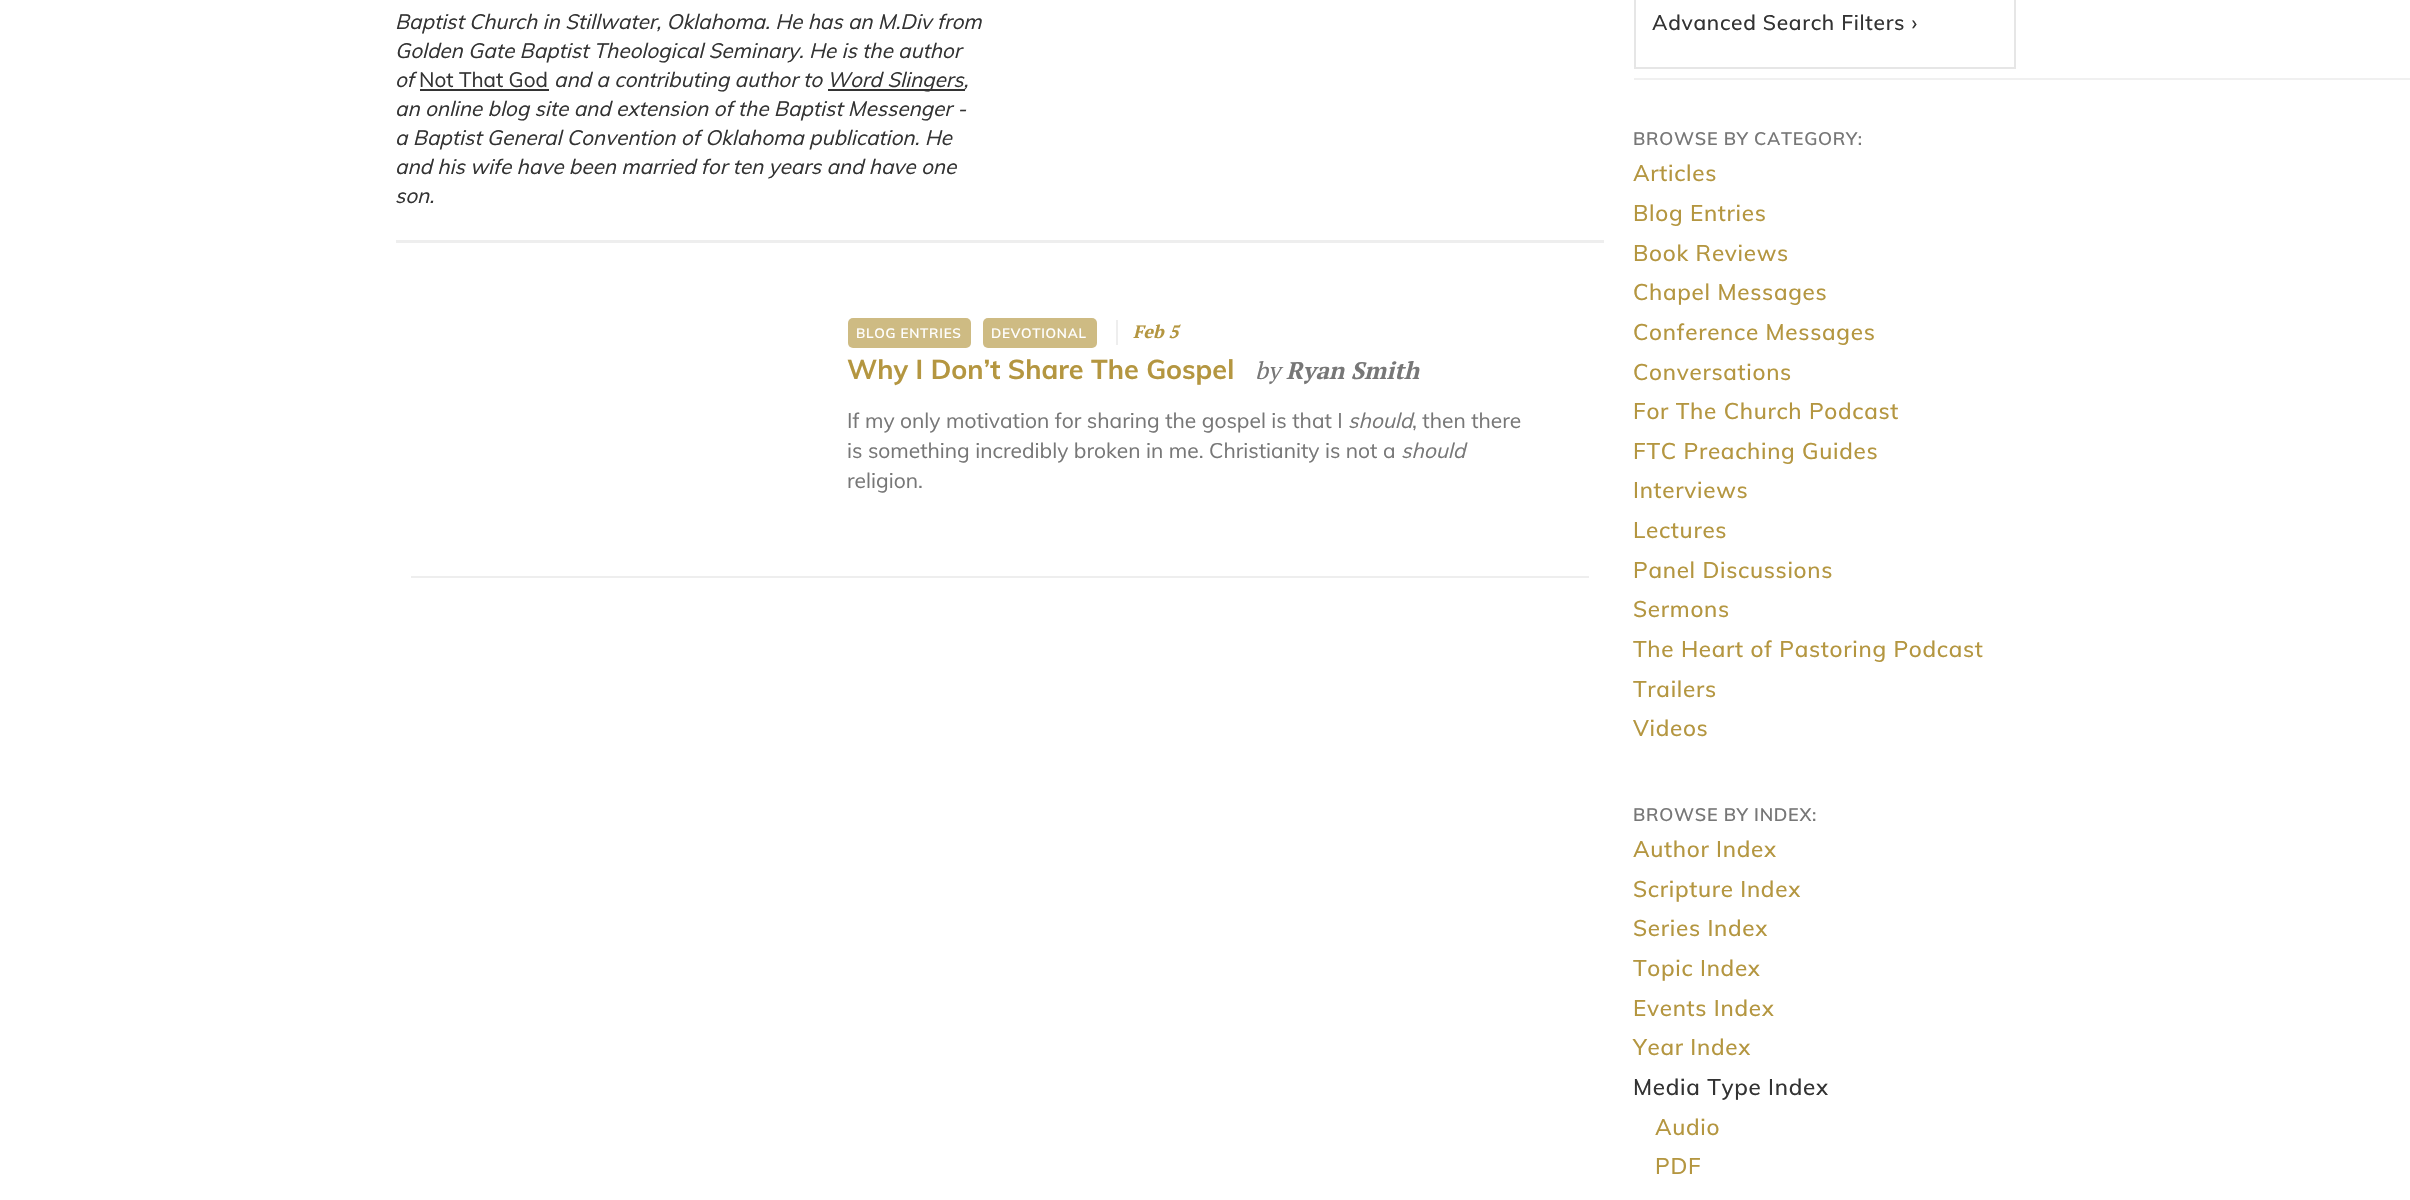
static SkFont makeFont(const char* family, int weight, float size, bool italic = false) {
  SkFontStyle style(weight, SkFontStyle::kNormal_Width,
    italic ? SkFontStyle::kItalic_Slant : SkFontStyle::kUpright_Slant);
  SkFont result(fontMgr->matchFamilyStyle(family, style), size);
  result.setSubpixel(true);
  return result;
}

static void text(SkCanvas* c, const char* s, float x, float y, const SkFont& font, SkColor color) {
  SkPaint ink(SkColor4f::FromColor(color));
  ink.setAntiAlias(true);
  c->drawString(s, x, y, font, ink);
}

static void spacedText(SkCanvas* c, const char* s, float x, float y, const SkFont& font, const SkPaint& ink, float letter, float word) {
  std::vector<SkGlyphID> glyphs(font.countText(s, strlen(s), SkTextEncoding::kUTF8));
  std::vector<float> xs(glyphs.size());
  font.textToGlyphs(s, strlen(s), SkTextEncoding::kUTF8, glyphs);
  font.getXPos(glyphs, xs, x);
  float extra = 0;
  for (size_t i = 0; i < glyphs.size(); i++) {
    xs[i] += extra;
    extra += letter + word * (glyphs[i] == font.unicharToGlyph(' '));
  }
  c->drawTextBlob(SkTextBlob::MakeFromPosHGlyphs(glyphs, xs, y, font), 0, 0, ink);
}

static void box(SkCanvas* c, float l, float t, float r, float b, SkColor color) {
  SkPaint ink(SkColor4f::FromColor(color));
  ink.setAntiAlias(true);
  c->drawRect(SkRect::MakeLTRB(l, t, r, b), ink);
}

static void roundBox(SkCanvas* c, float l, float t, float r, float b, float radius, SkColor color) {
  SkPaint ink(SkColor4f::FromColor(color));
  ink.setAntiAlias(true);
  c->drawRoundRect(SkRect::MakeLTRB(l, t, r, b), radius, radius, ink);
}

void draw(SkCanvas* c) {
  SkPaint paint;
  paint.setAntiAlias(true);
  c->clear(0xffffffff);
  box(c, 396, 240, 1604, 243, 0xffeeeeee);
  SkFont face1 = makeFont("Muli", 400, 20.7f, true);
  text(c, "Baptist Church in Stillwater, Oklahoma. He has an M.Div from", 395, 29, face1, 0xff333333);
  text(c, "Golden Gate Baptist Theological Seminary. He is the author", 395, 58, face1, 0xff333333);
  text(c, "of", 395, 87, face1, 0xff333333);
  SkFont face2 = makeFont("Muli", 400, 20.7f);
  text(c, "Not That God", 419, 87, face2, 0xff333333);
  box(c, 420, 89, 549, 91, 0xff333333);
  text(c, "and a contributing author to", 554, 87, face1, 0xff333333);
  box(c, 828, 89, 965, 91, 0xff333333);
  text(c, "Word Slingers,", 827, 87, face1, 0xff333333);
  text(c, "an online blog site and extension of the Baptist Messenger -", 395, 116, face1, 0xff333333);
  text(c, "a Baptist General Convention of Oklahoma publication. He", 395, 145, face1, 0xff333333);
  text(c, "and his wife have been married for ten years and have one", 395, 174, face1, 0xff333333);
  text(c, "son.", 395, 203, face1, 0xff333333);
  box(c, 411, 576, 1589, 578, 0xffeeeeee);
  roundBox(c, 848, 318, 971, 348, 5, 0xffcebb83);
  SkFont face3 = makeFont("Muli", 600, 13.5f);
  paint.setColor(0xffffffff);
  spacedText(c, "BLOG ENTRIES", 856, 338, face3, paint, 0.75f, 0);
  roundBox(c, 983, 318, 1097, 348, 5, 0xffcebb83);
  spacedText(c, "DEVOTIONAL", 991, 338, face3, paint, 0.75f, 0);
  box(c, 1116, 320, 1118, 345, 0xffeeeeee);
  SkFont face4 = makeFont("PT Serif", 700, 18, true);
  text(c, "Feb 5", 1133, 338, face4, 0xffb49640);
  SkFont face5 = makeFont("Muli", 700, 27);
  text(c, "Why I Don’t Share The Gospel", 847, 379, face5, 0xffb49640);
  SkFont face6 = makeFont("PT Serif", 400, 24, true);
  text(c, "by", 1255, 379, face6, 0xff777777);
  SkFont face7 = makeFont("PT Serif", 700, 24, true);
  text(c, "Ryan Smith", 1286, 379, face7, 0xff777777);
  SkFont face8 = makeFont("Muli", 400, 21);
  text(c, "If my only motivation for sharing the gospel is that I", 847, 428, face8, 0xff777777);
  SkFont face9 = makeFont("Muli", 400, 21, true);
  text(c, "should", 1348, 428, face9, 0xff777777);
  text(c, ", then there", 1412, 428, face8, 0xff777777);
  text(c, "is something incredibly broken in me. Christianity is not a", 847, 458, face8, 0xff777777);
  text(c, "should", 1401, 458, face9, 0xff777777);
  text(c, "religion.", 847, 488, face8, 0xff777777);
  paint.setStyle(SkPaint::kStroke_Style);
  paint.setStrokeWidth(2);
  paint.setColor(0xffe6e6e6);
  c->drawRect(SkRect::MakeLTRB(1635, -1, 2015, 68), paint);
  SkFont face10 = makeFont("Muli", 500, 21);
  paint.setStyle(SkPaint::kFill_Style);
  paint.setColor(0xff333333);
  spacedText(c, "Advanced Search Filters ›", 1652, 30, face10, paint, 0.7f, 0);
  SkFont face11 = makeFont("Muli", 600, 18);
  paint.setColor(0xff777777);
  spacedText(c, "BROWSE BY CATEGORY:", 1633, 145, face11, paint, 0.7f, 0);
  SkFont face12 = makeFont("Muli", 500, 22.5f);
  paint.setColor(0xffb49640);
  spacedText(c, "Articles", 1633, 181, face12, paint, 0.7f, 0);
  spacedText(c, "Blog Entries", 1633, 221, face12, paint, 0.7f, 0);
  spacedText(c, "Book Reviews", 1633, 261, face12, paint, 0.7f, 0);
  spacedText(c, "Chapel Messages", 1633, 300, face12, paint, 0.7f, 0);
  spacedText(c, "Conference Messages", 1633, 340, face12, paint, 0.7f, 0);
  spacedText(c, "Conversations", 1633, 380, face12, paint, 0.7f, 0);
  spacedText(c, "For The Church Podcast", 1633, 419, face12, paint, 0.7f, 0);
  spacedText(c, "FTC Preaching Guides", 1633, 459, face12, paint, 0.7f, 0);
  spacedText(c, "Interviews", 1633, 498, face12, paint, 0.7f, 0);
  spacedText(c, "Lectures", 1633, 538, face12, paint, 0.7f, 0);
  spacedText(c, "Panel Discussions", 1633, 578, face12, paint, 0.7f, 0);
  spacedText(c, "Sermons", 1633, 617, face12, paint, 0.7f, 0);
  spacedText(c, "The Heart of Pastoring Podcast", 1633, 657, face12, paint, 0.7f, 0);
  spacedText(c, "Trailers", 1633, 697, face12, paint, 0.7f, 0);
  spacedText(c, "Videos", 1633, 736, face12, paint, 0.7f, 0);
  paint.setColor(0xff777777);
  spacedText(c, "BROWSE BY INDEX:", 1633, 821, face11, paint, 0.7f, 0);
  paint.setColor(0xffb49640);
  spacedText(c, "Author Index", 1633, 857, face12, paint, 0.7f, 0);
  spacedText(c, "Scripture Index", 1633, 897, face12, paint, 0.7f, 0);
  spacedText(c, "Series Index", 1633, 936, face12, paint, 0.7f, 0);
  spacedText(c, "Topic Index", 1633, 976, face12, paint, 0.7f, 0);
  spacedText(c, "Events Index", 1633, 1016, face12, paint, 0.7f, 0);
  spacedText(c, "Year Index", 1633, 1055, face12, paint, 0.7f, 0);
  paint.setColor(0xff333333);
  spacedText(c, "Media Type Index", 1633, 1095, face12, paint, 0.7f, 0);
  paint.setColor(0xffb49640);
  spacedText(c, "Audio", 1655, 1135, face12, paint, 0.7f, 0);
  spacedText(c, "PDF", 1655, 1174, face12, paint, 0.7f, 0);
  box(c, 1634, 78, 2410, 80, 0xfff0f0f0);
}
